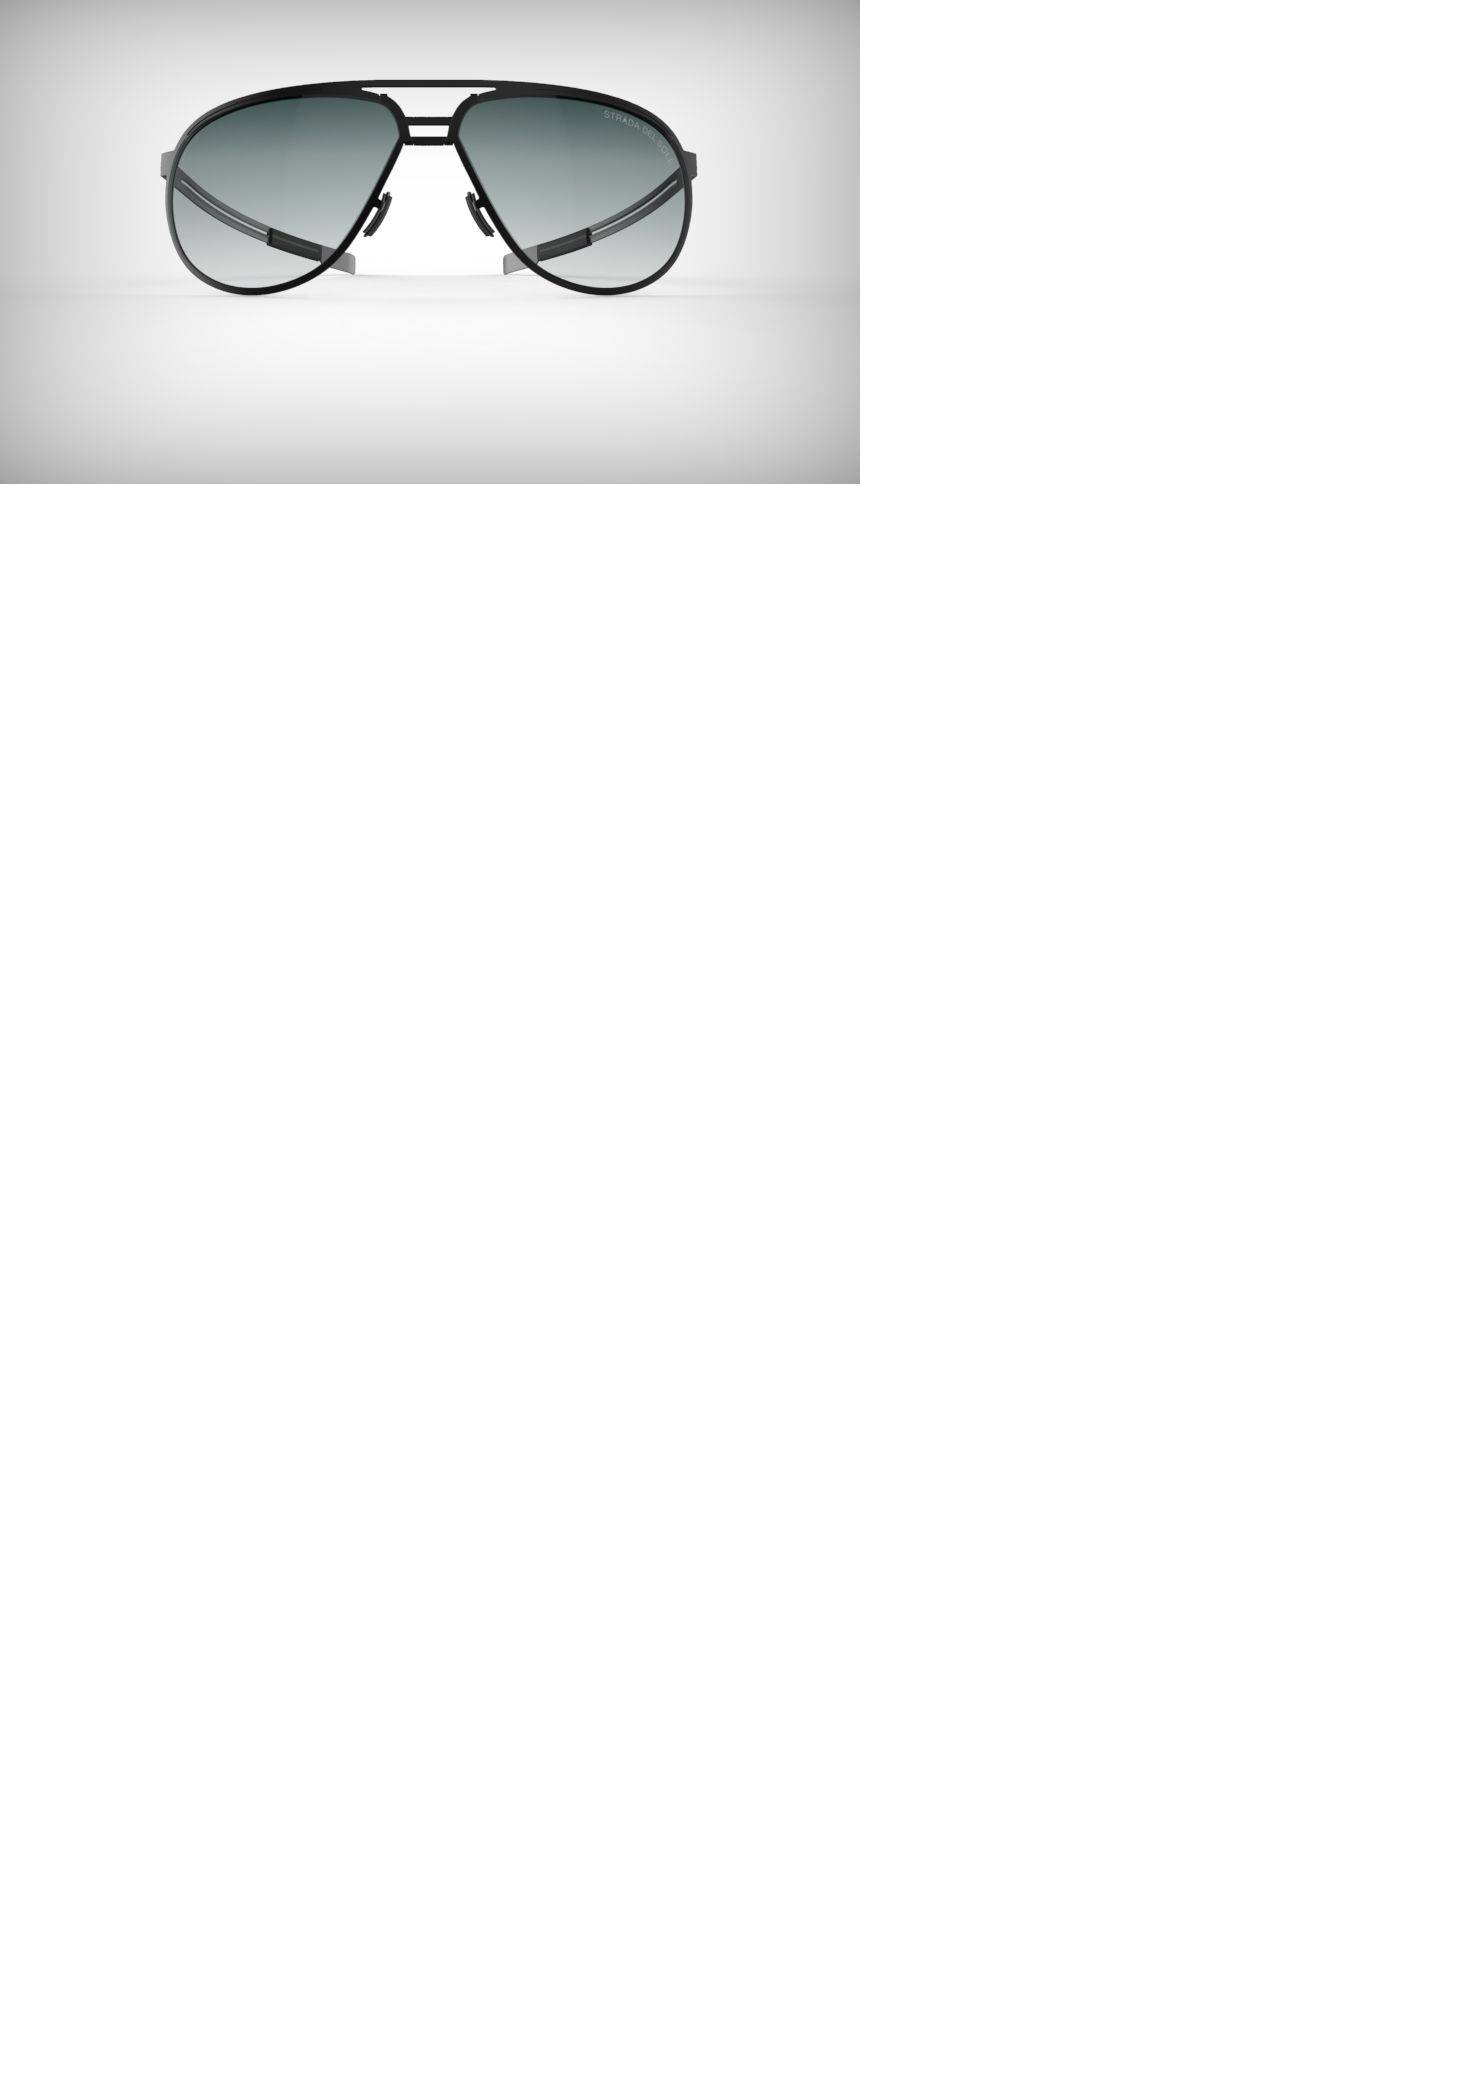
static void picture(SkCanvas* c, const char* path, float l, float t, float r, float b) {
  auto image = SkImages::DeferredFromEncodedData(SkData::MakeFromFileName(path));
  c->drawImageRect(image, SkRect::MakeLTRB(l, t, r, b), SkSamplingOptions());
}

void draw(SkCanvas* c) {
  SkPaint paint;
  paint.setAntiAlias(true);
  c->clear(0xffffffff);
  picture(c, "img_01.png", 0, 0, 860, 484);
}
